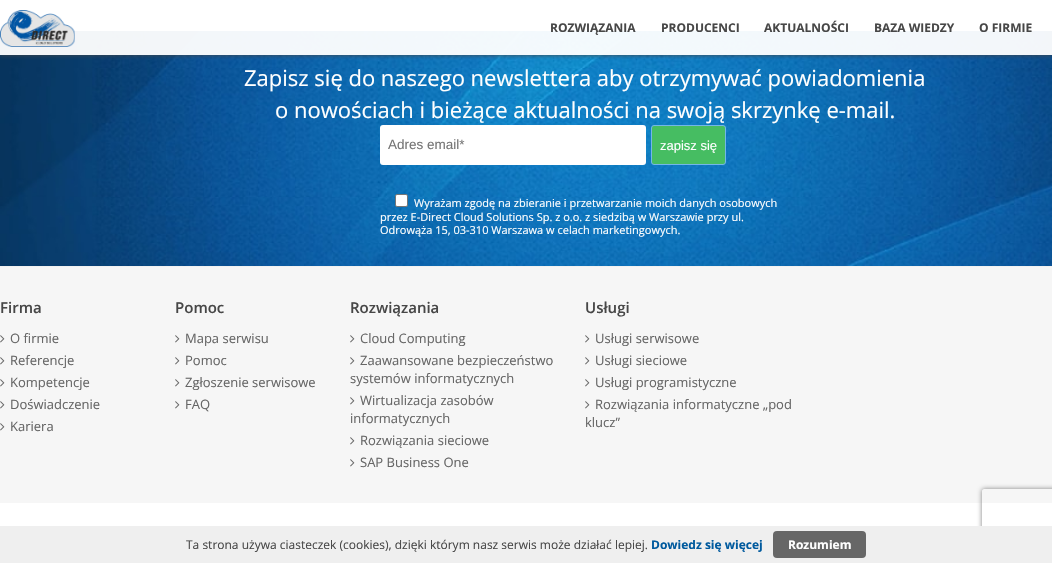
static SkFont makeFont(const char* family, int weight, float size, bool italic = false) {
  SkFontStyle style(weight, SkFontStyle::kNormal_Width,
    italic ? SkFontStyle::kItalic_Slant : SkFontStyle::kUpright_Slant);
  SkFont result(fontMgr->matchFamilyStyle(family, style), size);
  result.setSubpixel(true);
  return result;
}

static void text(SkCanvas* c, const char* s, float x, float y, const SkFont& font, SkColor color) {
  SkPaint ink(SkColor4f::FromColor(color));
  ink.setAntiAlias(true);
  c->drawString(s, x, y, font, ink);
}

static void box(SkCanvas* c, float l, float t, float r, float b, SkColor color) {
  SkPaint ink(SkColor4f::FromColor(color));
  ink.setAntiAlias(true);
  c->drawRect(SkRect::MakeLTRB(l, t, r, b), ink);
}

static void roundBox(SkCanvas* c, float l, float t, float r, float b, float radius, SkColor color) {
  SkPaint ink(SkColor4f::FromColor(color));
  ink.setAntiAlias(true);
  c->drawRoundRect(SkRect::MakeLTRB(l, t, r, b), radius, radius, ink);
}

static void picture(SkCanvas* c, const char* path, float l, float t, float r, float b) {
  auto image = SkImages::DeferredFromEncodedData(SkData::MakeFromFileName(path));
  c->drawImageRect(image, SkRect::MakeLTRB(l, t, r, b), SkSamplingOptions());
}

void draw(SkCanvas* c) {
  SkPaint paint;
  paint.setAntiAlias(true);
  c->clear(0xffffffff);
  picture(c, "img_02.png", 0, 31, 1052, 266);
  c->save();
  c->clipRect(SkRect::MakeLTRB(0, 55, 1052, 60));
  paint.setColor(0xff474747);
  paint.setMaskFilter(SkMaskFilter::MakeBlur(kNormal_SkBlurStyle, 2.5f));
  c->drawRect(SkRect::MakeLTRB(0, 0, 1052, 55), paint);
  paint.setMaskFilter(nullptr);
  c->restore();
  box(c, 0, 31, 1052, 55, 0xf2ffffff);
  picture(c, "img_01.png", 0, 10, 75, 47);
  SkFont face1 = makeFont("Open Sans", 700, 12);
  text(c, "ROZWIĄZANIA", 550, 32, face1, 0xff474747);
  text(c, "PRODUCENCI", 661, 32, face1, 0xff474747);
  text(c, "AKTUALNOŚCI", 764, 32, face1, 0xff474747);
  text(c, "BAZA WIEDZY", 874, 32, face1, 0xff474747);
  text(c, "O FIRMIE", 979, 32, face1, 0xff474747);
  box(c, 0, 266, 1052, 267, 0xfff1f1f1);
  SkFont face2 = makeFont("Open Sans", 400, 22);
  text(c, "Zapisz się do naszego newslettera aby otrzymywać powiadomienia", 244, 86, face2, 0xffffffff);
  text(c, "o nowościach i bieżące aktualności na swoją skrzynkę e-mail.", 275, 118, face2, 0xffffffff);
  roundBox(c, 380, 125, 646, 165, 3, 0xffffffff);
  SkFont face3 = makeFont("Liberation Sans", 400, 13.5f);
  text(c, "Adres email*", 388, 149, face3, 0xff757575);
  paint.setColor(0xff46bd62);
  c->drawRoundRect(SkRect::MakeLTRB(651.5f, 125.5f, 725.5f, 164.5f), 2.5f, 2.5f, paint);
  paint.setStyle(SkPaint::kStroke_Style);
  paint.setStrokeWidth(1);
  paint.setColor(0xff74b6e8);
  c->drawRoundRect(SkRect::MakeLTRB(651.5f, 125.5f, 725.5f, 164.5f), 2.5f, 2.5f, paint);
  SkFont face4 = makeFont("Liberation Sans", 400, 13);
  text(c, "zapisz się", 660, 150, face4, 0xffffffff);
  paint.setStyle(SkPaint::kFill_Style);
  paint.setColor(0xffffffff);
  c->drawRoundRect(SkRect::MakeLTRB(395.5f, 194.5f, 407.5f, 206.5f), 1.5f, 1.5f, paint);
  paint.setStyle(SkPaint::kStroke_Style);
  paint.setColor(0xff767676);
  c->drawRoundRect(SkRect::MakeLTRB(395.5f, 194.5f, 407.5f, 206.5f), 1.5f, 1.5f, paint);
  SkFont face5 = makeFont("Open Sans", 400, 11);
  text(c, "Wyrażam zgodę na zbieranie i przetwarzanie moich danych osobowych", 414, 207, face5, 0xffffffff);
  text(c, "przez E-Direct Cloud Solutions Sp. z o.o. z siedzibą w Warszawie przy ul.", 380, 221, face5, 0xffffffff);
  text(c, "Odrowąża 15, 03-310 Warszawa w celach marketingowych.", 380, 234, face5, 0xffffffff);
  box(c, 0, 267, 1052, 503, 0xfff6f6f6);
  SkFont face6 = makeFont("Open Sans", 600, 15);
  text(c, "Firma", 0, 313, face6, 0xff474747);
  picture(c, "img_03.png", 0, 335, 5, 343);
  SkFont face7 = makeFont("Open Sans", 400, 13);
  text(c, "O firmie", 10, 343, face7, 0xff666666);
  picture(c, "img_03.png", 0, 357, 5, 365);
  text(c, "Referencje", 10, 365, face7, 0xff666666);
  picture(c, "img_03.png", 0, 379, 5, 387);
  text(c, "Kompetencje", 10, 387, face7, 0xff666666);
  picture(c, "img_03.png", 0, 401, 5, 409);
  text(c, "Doświadczenie", 10, 409, face7, 0xff666666);
  picture(c, "img_03.png", 0, 423, 5, 431);
  text(c, "Kariera", 10, 431, face7, 0xff666666);
  text(c, "Pomoc", 175, 313, face6, 0xff474747);
  picture(c, "img_03.png", 175, 335, 180, 343);
  text(c, "Mapa serwisu", 185, 343, face7, 0xff666666);
  picture(c, "img_03.png", 175, 357, 180, 365);
  text(c, "Pomoc", 185, 365, face7, 0xff666666);
  picture(c, "img_03.png", 175, 379, 180, 387);
  text(c, "Zgłoszenie serwisowe", 185, 387, face7, 0xff666666);
  picture(c, "img_03.png", 175, 401, 180, 409);
  text(c, "FAQ", 185, 409, face7, 0xff666666);
  text(c, "Rozwiązania", 350, 313, face6, 0xff474747);
  picture(c, "img_03.png", 350, 335, 355, 343);
  text(c, "Cloud Computing", 360, 343, face7, 0xff666666);
  picture(c, "img_03.png", 350, 357, 355, 365);
  text(c, "Zaawansowane bezpieczeństwo", 360, 365, face7, 0xff666666);
  text(c, "systemów informatycznych", 350, 383, face7, 0xff666666);
  picture(c, "img_03.png", 350, 397, 355, 405);
  text(c, "Wirtualizacja zasobów", 360, 405, face7, 0xff666666);
  text(c, "informatycznych", 350, 423, face7, 0xff666666);
  picture(c, "img_03.png", 350, 437, 355, 445);
  text(c, "Rozwiązania sieciowe", 360, 445, face7, 0xff666666);
  picture(c, "img_03.png", 350, 459, 355, 467);
  text(c, "SAP Business One", 360, 467, face7, 0xff666666);
  text(c, "Usługi", 585, 313, face6, 0xff474747);
  picture(c, "img_03.png", 585, 335, 590, 343);
  text(c, "Usługi serwisowe", 595, 343, face7, 0xff666666);
  picture(c, "img_03.png", 585, 357, 590, 365);
  text(c, "Usługi sieciowe", 595, 365, face7, 0xff666666);
  picture(c, "img_03.png", 585, 379, 590, 387);
  text(c, "Usługi programistyczne", 595, 387, face7, 0xff666666);
  picture(c, "img_03.png", 585, 401, 590, 409);
  text(c, "Rozwiązania informatyczne „pod", 595, 409, face7, 0xff666666);
  text(c, "klucz”", 585, 427, face7, 0xff666666);
  c->save();
  c->clipPath(SkPathBuilder(SkPathFillType::kEvenOdd).moveTo(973, 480).lineTo(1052, 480).lineTo(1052, 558).lineTo(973, 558).close().moveTo(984, 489).lineTo(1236, 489).cubicTo(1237, 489, 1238, 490, 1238, 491).lineTo(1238, 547).cubicTo(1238, 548, 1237, 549, 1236, 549).lineTo(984, 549).cubicTo(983, 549, 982, 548, 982, 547).lineTo(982, 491).cubicTo(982, 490, 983, 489, 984, 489).close().detach(), true);
  paint.setStyle(SkPaint::kFill_Style);
  paint.setColor(0xff808080);
  paint.setMaskFilter(SkMaskFilter::MakeBlur(kNormal_SkBlurStyle, 2.5f));
  c->drawRoundRect(SkRect::MakeLTRB(982, 489, 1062, 549), 2, 2, paint);
  paint.setMaskFilter(nullptr);
  c->restore();
  box(c, 0, 526, 1052, 563, 0xffefefef);
  SkFont face8 = makeFont("Open Sans", 400, 12);
  text(c, "Ta strona używa ciasteczek (cookies), dzięki którym nasz serwis może działać lepiej.", 186, 549, face8, 0xff474747);
  text(c, "Dowiedz się więcej", 651, 549, face1, 0xff005a9e);
  roundBox(c, 773, 531, 866, 558, 4, 0xff676767);
  text(c, "Rozumiem", 788, 549, face1, 0xffffffff);
}
